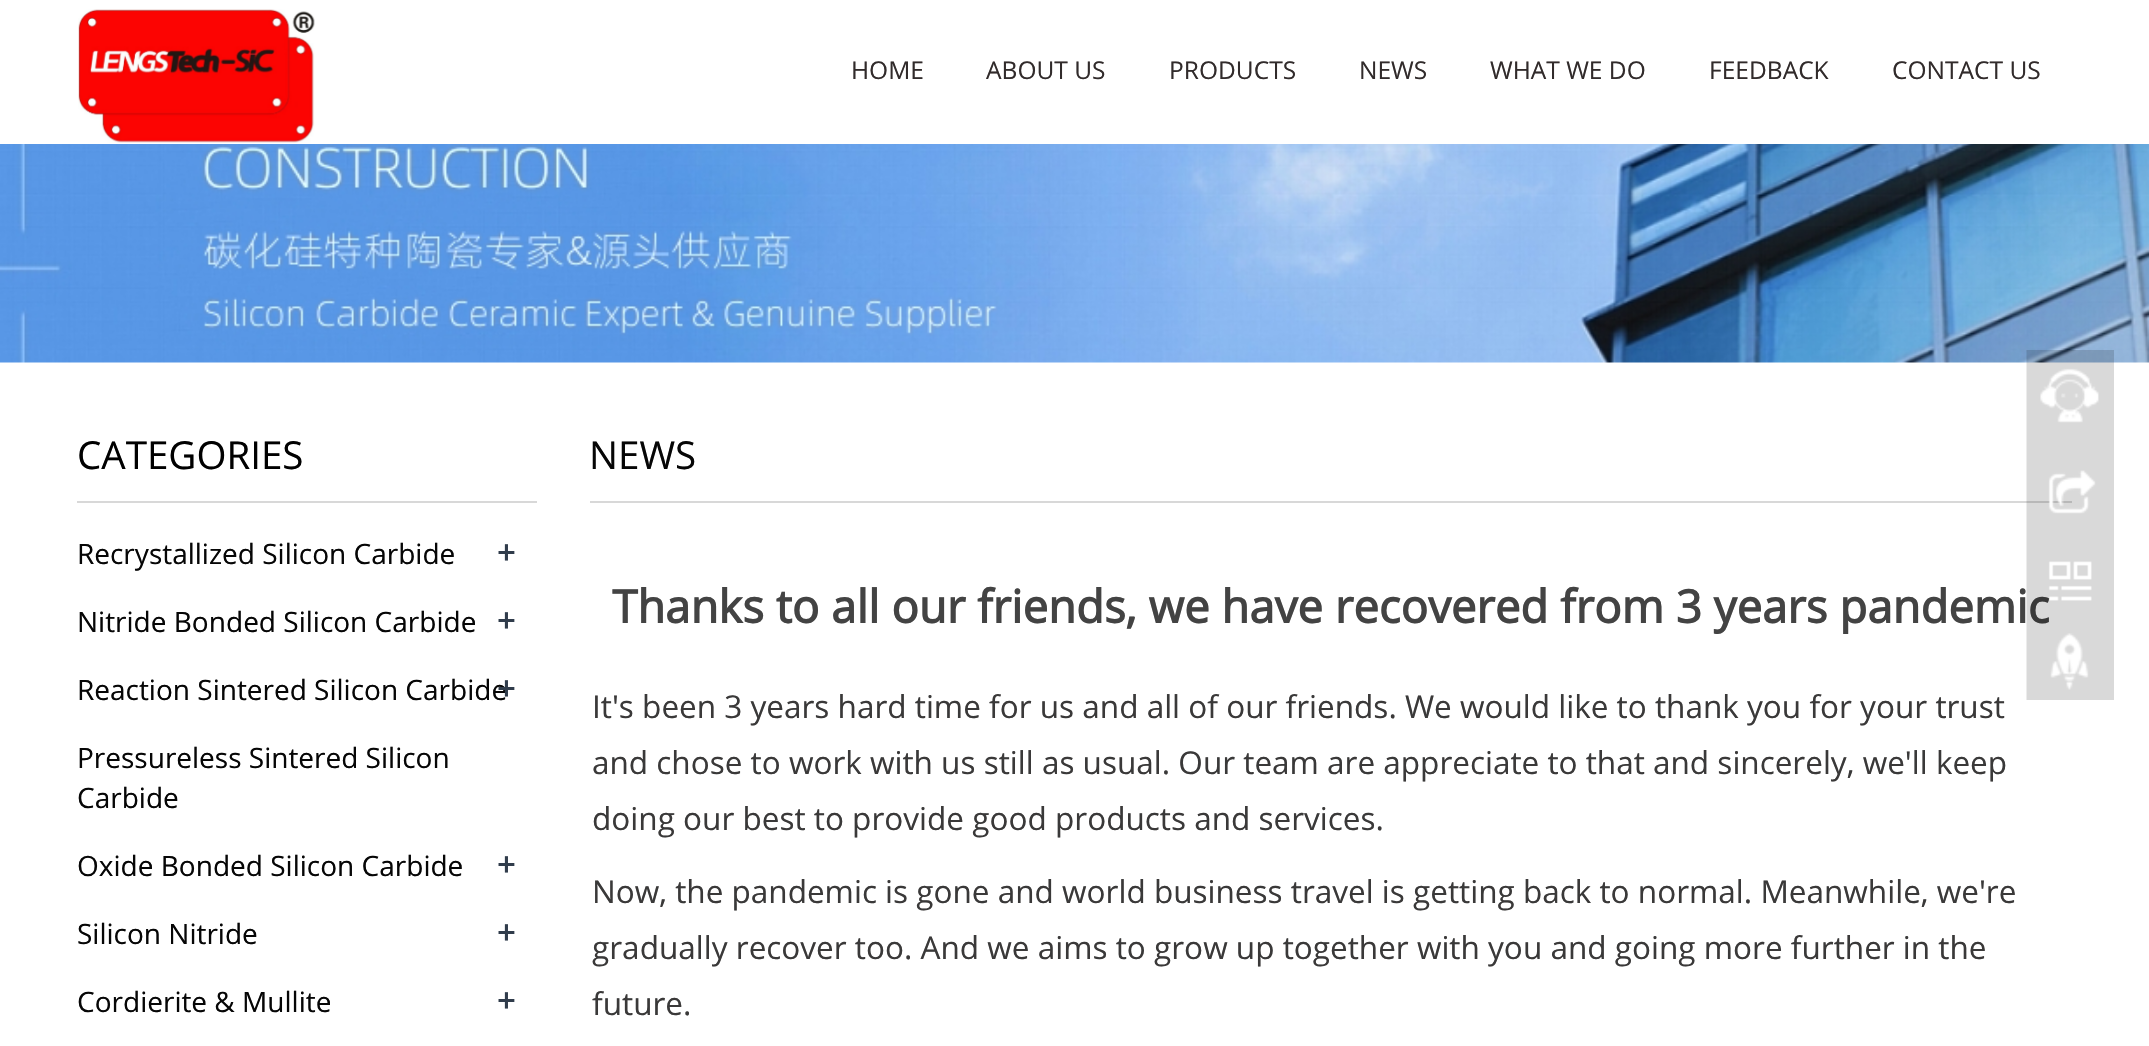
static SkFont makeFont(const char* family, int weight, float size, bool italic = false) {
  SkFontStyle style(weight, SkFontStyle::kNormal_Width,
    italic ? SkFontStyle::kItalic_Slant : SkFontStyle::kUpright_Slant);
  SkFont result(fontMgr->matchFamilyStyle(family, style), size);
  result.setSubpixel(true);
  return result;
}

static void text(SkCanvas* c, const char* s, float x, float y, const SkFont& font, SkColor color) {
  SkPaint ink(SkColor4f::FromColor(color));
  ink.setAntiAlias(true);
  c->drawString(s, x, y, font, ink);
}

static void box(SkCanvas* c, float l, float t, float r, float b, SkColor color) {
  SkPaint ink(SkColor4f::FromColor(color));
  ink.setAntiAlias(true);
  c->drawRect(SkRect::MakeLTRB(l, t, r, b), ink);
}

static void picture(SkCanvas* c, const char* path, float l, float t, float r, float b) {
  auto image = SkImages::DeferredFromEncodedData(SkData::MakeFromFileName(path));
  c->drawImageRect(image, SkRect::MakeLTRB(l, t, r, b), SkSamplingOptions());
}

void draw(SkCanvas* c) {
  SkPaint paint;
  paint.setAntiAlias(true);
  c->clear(0xffffffff);
  picture(c, "img_01.png", 78, 9, 315, 143);
  SkFont face1 = makeFont("Open Sans", 400, 24.5f);
  text(c, "HOME", 851, 79, face1, 0xff312b2b);
  text(c, "ABOUT US", 986, 79, face1, 0xff312b2b);
  text(c, "PRODUCTS", 1169, 79, face1, 0xff312b2b);
  text(c, "NEWS", 1359, 79, face1, 0xff312b2b);
  text(c, "WHAT WE DO", 1490, 79, face1, 0xff312b2b);
  text(c, "FEEDBACK", 1709, 79, face1, 0xff312b2b);
  text(c, "CONTACT US", 1892, 79, face1, 0xff312b2b);
  picture(c, "img_02.png", 0, 144, 2149, 363);
  box(c, 77, 501, 537, 503, 0xffd8d8d8);
  SkFont face2 = makeFont("Open Sans", 400, 38.5f);
  text(c, "CATEGORIES", 77, 469, face2, 0xff000000);
  SkFont face3 = makeFont("Open Sans", 400, 28);
  text(c, "Recrystallized Silicon Carbide", 77, 564, face3, 0xff060606);
  SkFont face4 = makeFont("Open Sans", 700, 31.5f);
  text(c, "+", 497, 564, face4, 0xff303c4b);
  text(c, "Nitride Bonded Silicon Carbide", 77, 632, face3, 0xff060606);
  text(c, "+", 497, 632, face4, 0xff303c4b);
  text(c, "Reaction Sintered Silicon Carbide", 77, 700, face3, 0xff060606);
  text(c, "+", 497, 700, face4, 0xff303c4b);
  text(c, "Pressureless Sintered Silicon", 77, 768, face3, 0xff060606);
  text(c, "Carbide", 77, 808, face3, 0xff060606);
  text(c, "Oxide Bonded Silicon Carbide", 77, 876, face3, 0xff060606);
  text(c, "+", 497, 876, face4, 0xff303c4b);
  text(c, "Silicon Nitride", 77, 944, face3, 0xff060606);
  text(c, "+", 497, 944, face4, 0xff303c4b);
  text(c, "Cordierite & Mullite", 77, 1012, face3, 0xff060606);
  text(c, "+", 497, 1012, face4, 0xff303c4b);
  box(c, 590, 501, 2072, 503, 0xffd8d8d8);
  text(c, "NEWS", 589, 469, face2, 0xff060606);
  SkFont face5 = makeFont("Open Sans", 700, 45.5f);
  text(c, "Thanks to all our friends, we have recovered from 3 years pandemic", 612, 623, face5, 0xff434343);
  SkFont face6 = makeFont("Open Sans", 400, 31.5f);
  text(c, "It's been 3 years hard time for us and all of our friends. We would like to thank you for your trust", 592, 718, face6, 0xff3a3939);
  text(c, "and chose to work with us still as usual. Our team are appreciate to that and sincerely, we'll keep", 592, 774, face6, 0xff3a3939);
  text(c, "doing our best to provide good products and services.", 592, 830, face6, 0xff3a3939);
  text(c, "Now, the pandemic is gone and world business travel is getting back to normal. Meanwhile, we're", 592, 903, face6, 0xff3a3939);
  text(c, "gradually recover too. And we aims to grow up together with you and going more further in the", 592, 959, face6, 0xff3a3939);
  text(c, "future.", 592, 1015, face6, 0xff3a3939);
  picture(c, "img_03.png", 2026, 350, 2114, 700);
}
